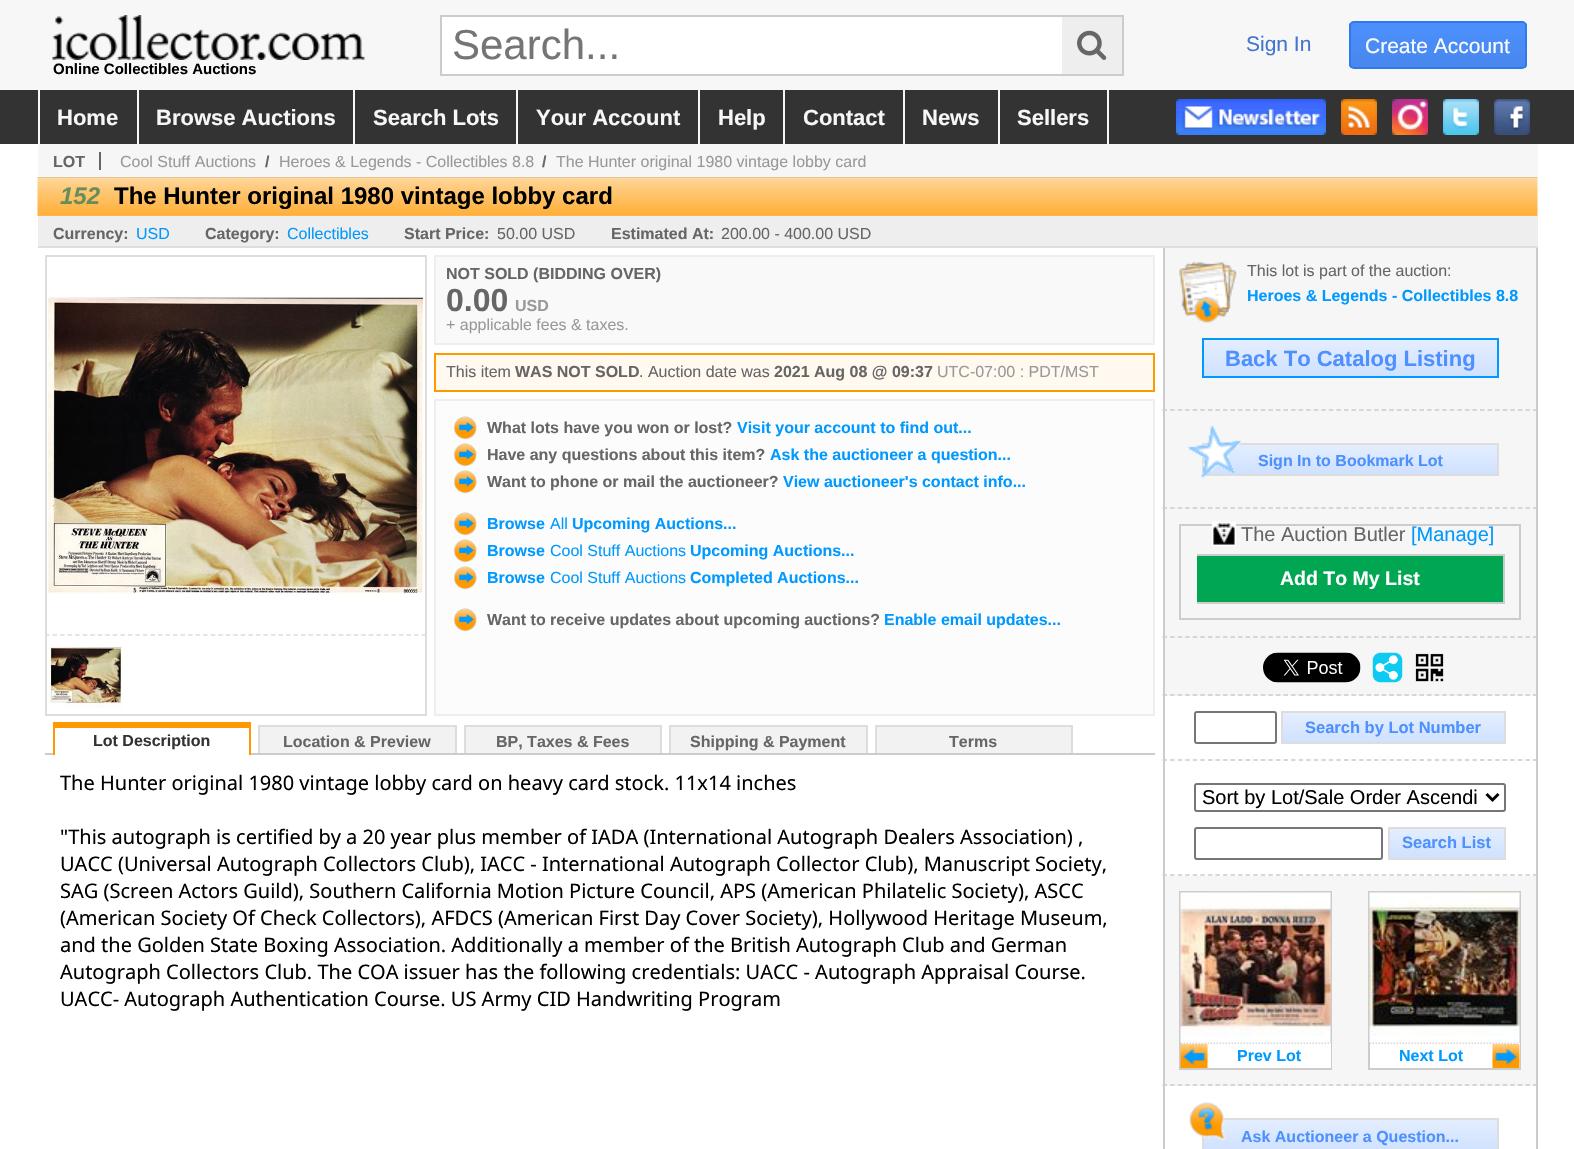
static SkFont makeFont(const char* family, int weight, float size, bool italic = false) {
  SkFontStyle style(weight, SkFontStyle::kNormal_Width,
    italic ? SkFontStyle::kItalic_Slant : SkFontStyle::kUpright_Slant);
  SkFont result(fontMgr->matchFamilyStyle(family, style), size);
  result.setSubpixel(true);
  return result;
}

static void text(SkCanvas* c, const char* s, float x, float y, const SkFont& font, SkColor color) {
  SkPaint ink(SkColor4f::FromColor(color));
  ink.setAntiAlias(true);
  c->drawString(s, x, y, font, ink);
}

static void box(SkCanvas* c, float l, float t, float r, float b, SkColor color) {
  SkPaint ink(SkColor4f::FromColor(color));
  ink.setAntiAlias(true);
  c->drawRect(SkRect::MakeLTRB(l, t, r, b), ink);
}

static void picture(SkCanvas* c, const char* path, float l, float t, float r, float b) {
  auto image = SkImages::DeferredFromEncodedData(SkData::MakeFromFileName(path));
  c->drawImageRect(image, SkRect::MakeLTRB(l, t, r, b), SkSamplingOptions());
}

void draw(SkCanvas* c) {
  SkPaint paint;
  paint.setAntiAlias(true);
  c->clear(0xffffffff);
  box(c, 0, 0, 1574, 90, 0xfff7f7f7);
  box(c, 442, 17, 1062, 74, 0xffffffff);
  box(c, 440, 15, 1124, 17, 0xffcccccc);
  box(c, 440, 74, 1062, 76, 0xffcccccc);
  box(c, 440, 15, 442, 75, 0xffcccccc);
  SkFont face1 = makeFont("Liberation Sans", 400, 42);
  text(c, "Search...", 452, 59, face1, 0xff757575);
  box(c, 1062, 17, 1122, 74, 0xffeeeeee);
  box(c, 1122, 15, 1124, 75, 0xffcccccc);
  box(c, 1062, 74, 1124, 76, 0xffcccccc);
  picture(c, "img_01.png", 1077, 30, 1107, 60);
  SkFont face2 = makeFont("Liberation Sans", 400, 21);
  text(c, "Sign In", 1246, 51, face2, 0xff4374ce);
  c->save();
  c->clipPath(SkPathBuilder().moveTo(1354, 21).lineTo(1522, 21).cubicTo(1525, 21, 1527, 23, 1527, 26).lineTo(1527, 64).cubicTo(1527, 67, 1525, 69, 1522, 69).lineTo(1354, 69).cubicTo(1351, 69, 1349, 67, 1349, 64).lineTo(1349, 26).cubicTo(1349, 23, 1351, 21, 1354, 21).close().detach(), true);
  {
    const SkColor colors[] = {0xff4d90fe, 0xff4787ed};
    const float stops[] = {0, 1};
    const SkPoint ends[] = {{1438, 22}, {1438, 68}};
    paint.setShader(SkGradientShader::MakeLinear(ends, colors, stops, 2, SkTileMode::kClamp));
    paint.setAlpha(255);
  }
  c->drawRect(SkRect::MakeLTRB(1349, 23, 1527, 68), paint);
  c->restore();
  paint.setStyle(SkPaint::kStroke_Style);
  paint.setStrokeWidth(2);
  paint.setShader(nullptr);
  paint.setColor(0xff3079ed);
  c->drawRoundRect(SkRect::MakeLTRB(1350, 22, 1526, 68), 4, 4, paint);
  text(c, "Create Account", 1365, 53, face2, 0xffffffff);
  picture(c, "img_02.png", 52, 15, 365, 60);
  SkFont face3 = makeFont("Liberation Sans", 700, 15);
  text(c, "Online Collectibles Auctions", 53, 74, face3, 0xff000000);
  box(c, 0, 90, 1574, 144, 0xff333333);
  box(c, 38, 90, 40, 144, 0xfff7f7f7);
  SkFont face4 = makeFont("Liberation Sans", 700, 22);
  text(c, "Home", 57, 125, face4, 0xfff7f7f7);
  box(c, 137, 90, 139, 144, 0xfff7f7f7);
  text(c, "Browse Auctions", 156, 125, face4, 0xfff7f7f7);
  box(c, 353, 90, 355, 144, 0xfff7f7f7);
  text(c, "Search Lots", 373, 125, face4, 0xfff7f7f7);
  box(c, 516, 90, 518, 144, 0xfff7f7f7);
  text(c, "Your Account", 536, 125, face4, 0xfff7f7f7);
  box(c, 698, 90, 700, 144, 0xfff7f7f7);
  text(c, "Help", 718, 125, face4, 0xfff7f7f7);
  box(c, 783, 90, 785, 144, 0xfff7f7f7);
  text(c, "Contact", 803, 125, face4, 0xfff7f7f7);
  box(c, 903, 90, 905, 144, 0xfff7f7f7);
  text(c, "News", 922, 125, face4, 0xfff7f7f7);
  box(c, 1107, 90, 1109, 144, 0xfff7f7f7);
  box(c, 998, 90, 1000, 144, 0xfff7f7f7);
  text(c, "Sellers", 1017, 125, face4, 0xfff7f7f7);
  picture(c, "img_03.png", 1176, 99, 1326, 135);
  picture(c, "img_04.png", 1341, 99, 1377, 135);
  picture(c, "img_05.png", 1392, 99, 1428, 135);
  picture(c, "img_06.png", 1443, 99, 1479, 135);
  picture(c, "img_07.png", 1494, 99, 1530, 135);
  box(c, 38, 144, 1538, 177, 0xfff6f6f6);
  SkFont face5 = makeFont("Liberation Sans", 700, 16);
  text(c, "LOT", 53, 167, face5, 0xff666666);
  box(c, 99, 152, 101, 170, 0xff666666);
  SkFont face6 = makeFont("Liberation Sans", 400, 16);
  text(c, "Cool Stuff Auctions", 120, 167, face6, 0xff999999);
  text(c, "/", 265, 167, face5, 0xff666666);
  text(c, "Heroes & Legends - Collectibles 8.8", 279, 167, face6, 0xff999999);
  text(c, "/", 542, 167, face5, 0xff666666);
  text(c, "The Hunter original 1980 vintage lobby card", 556, 167, face6, 0xff999999);
  picture(c, "img_08.png", 37, 177, 1538, 216);
  SkFont face7 = makeFont("Liberation Sans", 700, 24, true);
  text(c, "152", 60, 204, face7, 0xff698c5b);
  SkFont face8 = makeFont("Liberation Sans", 700, 24);
  text(c, "The Hunter original 1980 vintage lobby card", 114, 204, face8, 0xff000000);
  box(c, 38, 216, 1538, 246, 0xffeeeeee);
  box(c, 38, 246, 1538, 248, 0xffdddddd);
  text(c, "Currency:", 53, 239, face5, 0xff666666);
  text(c, "USD", 136, 239, face6, 0xff0099ff);
  text(c, "Category:", 205, 239, face5, 0xff666666);
  text(c, "Collectibles", 287, 239, face6, 0xff0099ff);
  text(c, "Start Price:", 404, 239, face5, 0xff666666);
  text(c, "50.00 USD", 497, 239, face6, 0xff666666);
  text(c, "Estimated At:", 611, 239, face5, 0xff666666);
  text(c, "200.00 - 400.00 USD", 721, 239, face6, 0xff666666);
  box(c, 45, 255, 426, 257, 0xffdddddd);
  box(c, 425, 255, 427, 635, 0xffdddddd);
  box(c, 45, 255, 47, 635, 0xffdddddd);
  picture(c, "img_09.png", 48, 297, 423, 595);
  paint.setStrokeWidth(1.5f);
  paint.setColor(0xffdddddd);
  paint.setPathEffect(SkDashPathEffect::Make({{4.5f, 3.03f}}, 0));
  c->drawPath(SkPathBuilder().moveTo(45, 635).lineTo(426, 635).detach(), paint);
  paint.setPathEffect(nullptr);
  box(c, 425, 635, 427, 716, 0xffdddddd);
  box(c, 45, 714, 426, 716, 0xffdddddd);
  box(c, 45, 635, 47, 716, 0xffdddddd);
  picture(c, "img_10.png", 49, 645, 122, 708);
  paint.setStyle(SkPaint::kFill_Style);
  paint.setColor(0xfff9f9f9);
  c->drawRect(SkRect::MakeLTRB(435, 256, 1154, 344), paint);
  paint.setStyle(SkPaint::kStroke_Style);
  paint.setStrokeWidth(2);
  paint.setColor(0xffeeeeee);
  c->drawRect(SkRect::MakeLTRB(435, 256, 1154, 344), paint);
  text(c, "NOT SOLD (BIDDING OVER)", 446, 279, face5, 0xff666666);
  SkFont face9 = makeFont("Liberation Sans", 700, 32);
  text(c, "0.00", 446, 311, face9, 0xff666666);
  text(c, "USD", 515, 311, face5, 0xff999999);
  text(c, "+ applicable fees & taxes.", 446, 330, face6, 0xff999999);
  paint.setStyle(SkPaint::kFill_Style);
  paint.setColor(0xfffff9f0);
  c->drawRect(SkRect::MakeLTRB(435, 354, 1154, 391), paint);
  paint.setStyle(SkPaint::kStroke_Style);
  paint.setColor(0xffff9900);
  c->drawRect(SkRect::MakeLTRB(435, 354, 1154, 391), paint);
  text(c, "This item", 446, 377, face6, 0xff666666);
  text(c, "WAS NOT SOLD", 515, 377, face5, 0xff666666);
  text(c, ". Auction date was", 639, 377, face6, 0xff666666);
  text(c, "2021 Aug 08 @ 09:37", 774, 377, face5, 0xff666666);
  text(c, "UTC-07:00 : PDT/MST", 937, 377, face6, 0xff999999);
  paint.setStyle(SkPaint::kFill_Style);
  paint.setColor(0xfffcfcfc);
  c->drawRect(SkRect::MakeLTRB(435, 400, 1154, 715), paint);
  paint.setStyle(SkPaint::kStroke_Style);
  paint.setColor(0xffeeeeee);
  c->drawRect(SkRect::MakeLTRB(435, 400, 1154, 715), paint);
  picture(c, "img_11.png", 454, 416, 477, 440);
  text(c, "What lots have you won or lost?", 487, 433, face5, 0xff666666);
  text(c, "Visit your account to find out...", 737, 433, face5, 0xff0099ff);
  picture(c, "img_11.png", 454, 443, 477, 467);
  text(c, "Have any questions about this item?", 487, 460, face5, 0xff666666);
  text(c, "Ask the auctioneer a question...", 770, 460, face5, 0xff0099ff);
  picture(c, "img_11.png", 454, 470, 477, 494);
  text(c, "Want to phone or mail the auctioneer?", 487, 487, face5, 0xff666666);
  text(c, "View auctioneer's contact info...", 783, 487, face5, 0xff0099ff);
  picture(c, "img_11.png", 454, 512, 477, 536);
  text(c, "Browse", 487, 529, face5, 0xff0099ff);
  text(c, "All", 550, 529, face6, 0xff0099ff);
  text(c, "Upcoming Auctions...", 572, 529, face5, 0xff0099ff);
  picture(c, "img_11.png", 454, 539, 477, 563);
  text(c, "Browse", 487, 556, face5, 0xff0099ff);
  text(c, "Cool Stuff Auctions", 550, 556, face6, 0xff0099ff);
  text(c, "Upcoming Auctions...", 690, 556, face5, 0xff0099ff);
  picture(c, "img_11.png", 454, 566, 477, 590);
  text(c, "Browse", 487, 583, face5, 0xff0099ff);
  text(c, "Cool Stuff Auctions", 550, 583, face6, 0xff0099ff);
  text(c, "Completed Auctions...", 690, 583, face5, 0xff0099ff);
  picture(c, "img_11.png", 454, 608, 477, 632);
  text(c, "Want to receive updates about upcoming auctions?", 487, 625, face5, 0xff666666);
  text(c, "Enable email updates...", 884, 625, face5, 0xff0099ff);
  box(c, 45, 753, 1155, 755, 0xffcccccc);
  box(c, 55, 753, 249, 755, 0xffffffff);
  box(c, 53, 722, 251, 728, 0xffff9900);
  box(c, 249, 722, 251, 755, 0xffff9900);
  box(c, 53, 722, 55, 755, 0xffff9900);
  text(c, "Lot Description", 93, 746, face5, 0xff333333);
  box(c, 260, 727, 455, 753, 0xfff2f2f2);
  box(c, 258, 725, 456, 727, 0xffdddddd);
  box(c, 455, 725, 457, 753, 0xffdddddd);
  box(c, 258, 725, 260, 753, 0xffdddddd);
  text(c, "Location & Preview", 283, 747, face5, 0xff666666);
  box(c, 466, 727, 660, 753, 0xfff2f2f2);
  box(c, 464, 725, 662, 727, 0xffdddddd);
  box(c, 660, 725, 662, 753, 0xffdddddd);
  box(c, 464, 725, 466, 753, 0xffdddddd);
  text(c, "BP, Taxes & Fees", 496, 747, face5, 0xff666666);
  box(c, 671, 727, 866, 753, 0xfff2f2f2);
  box(c, 669, 725, 867, 727, 0xffdddddd);
  box(c, 866, 725, 868, 753, 0xffdddddd);
  box(c, 669, 725, 671, 753, 0xffdddddd);
  text(c, "Shipping & Payment", 690, 747, face5, 0xff666666);
  box(c, 877, 727, 1071, 753, 0xfff2f2f2);
  box(c, 875, 725, 1073, 727, 0xffdddddd);
  box(c, 1071, 725, 1073, 753, 0xffdddddd);
  box(c, 875, 725, 877, 753, 0xffdddddd);
  text(c, "Terms", 949, 747, face5, 0xff666666);
  SkFont face10 = makeFont("Noto Sans", 400, 20);
  text(c, "The Hunter original 1980 vintage lobby card on heavy card stock. 11x14 inches", 60, 790, face10, 0xff000000);
  text(c, "\"This autograph is certified by a 20 year plus member of IADA (International Autograph Dealers Association) ,", 60, 844, face10, 0xff000000);
  text(c, "UACC (Universal Autograph Collectors Club), IACC - International Autograph Collector Club), Manuscript Society,", 60, 871, face10, 0xff000000);
  text(c, "SAG (Screen Actors Guild), Southern California Motion Picture Council, APS (American Philatelic Society), ASCC", 60, 898, face10, 0xff000000);
  text(c, "(American Society Of Check Collectors), AFDCS (American First Day Cover Society), Hollywood Heritage Museum,", 60, 925, face10, 0xff000000);
  text(c, "and the Golden State Boxing Association. Additionally a member of the British Autograph Club and German", 60, 952, face10, 0xff000000);
  text(c, "Autograph Collectors Club. The COA issuer has the following credentials: UACC - Autograph Appraisal Course.", 60, 979, face10, 0xff000000);
  text(c, "UACC- Autograph Authentication Course. US Army CID Handwriting Program", 60, 1006, face10, 0xff000000);
  box(c, 1165, 248, 1536, 696, 0xfff6f6f6);
  box(c, 1536, 248, 1538, 1149, 0xffcccccc);
  paint.setStrokeWidth(1.5f);
  paint.setColor(0xffcccccc);
  paint.setPathEffect(SkDashPathEffect::Make({{4.5f, 3.06f}}, 0));
  c->drawPath(SkPathBuilder().moveTo(1162.5f, 410).lineTo(1537.5f, 410).detach(), paint);
  paint.setPathEffect(nullptr);
  box(c, 1163, 248, 1165, 411, 0xffcccccc);
  picture(c, "img_12.png", 1179, 262, 1237, 323);
  text(c, "This lot is part of the auction:", 1247, 276, face6, 0xff666666);
  text(c, "Heroes & Legends - Collectibles 8.8", 1247, 301, face5, 0xff0099ff);
  paint.setStyle(SkPaint::kFill_Style);
  {
    const SkColor colors[] = {0xffe4eeff, 0xffcfe1ff};
    const float stops[] = {0, 1};
    const SkPoint ends[] = {{1350, 339}, {1350, 377}};
    paint.setShader(SkGradientShader::MakeLinear(ends, colors, stops, 2, SkTileMode::kClamp));
    paint.setAlpha(255);
  }
  c->drawRect(SkRect::MakeLTRB(1204, 340, 1497, 376), paint);
  paint.setStyle(SkPaint::kStroke_Style);
  paint.setStrokeWidth(2);
  paint.setShader(nullptr);
  paint.setColor(0xff0099ff);
  c->drawRect(SkRect::MakeLTRB(1203, 339, 1498, 377), paint);
  text(c, "Back To Catalog Listing", 1225, 366, face4, 0xff4d90fe);
  paint.setStrokeWidth(1.5f);
  paint.setColor(0xffcccccc);
  paint.setPathEffect(SkDashPathEffect::Make({{4.5f, 3.06f}}, 0));
  c->drawPath(SkPathBuilder().moveTo(1162.5f, 508).lineTo(1537.5f, 508).detach(), paint);
  paint.setPathEffect(nullptr);
  box(c, 1163, 411, 1165, 509, 0xffcccccc);
  paint.setStyle(SkPaint::kFill_Style);
  {
    const SkColor colors[] = {0xffe4eeff, 0xffcfe1ff};
    const float stops[] = {0, 1};
    const SkPoint ends[] = {{1350, 444}, {1350, 474}};
    paint.setShader(SkGradientShader::MakeLinear(ends, colors, stops, 2, SkTileMode::kClamp));
    paint.setAlpha(255);
  }
  c->drawRect(SkRect::MakeLTRB(1204, 445, 1497, 474), paint);
  paint.setStyle(SkPaint::kStroke_Style);
  paint.setStrokeWidth(2);
  paint.setShader(nullptr);
  paint.setColor(0xffdddddd);
  c->drawRect(SkRect::MakeLTRB(1203, 444, 1498, 475), paint);
  picture(c, "img_13.png", 1187, 425, 1241, 478);
  text(c, "Sign In to Bookmark Lot", 1258, 466, face5, 0xff4d90fe);
  paint.setStrokeWidth(1.5f);
  paint.setColor(0xffcccccc);
  paint.setPathEffect(SkDashPathEffect::Make({{4.5f, 3.06f}}, 0));
  c->drawPath(SkPathBuilder().moveTo(1162.5f, 637).lineTo(1537.5f, 637).detach(), paint);
  paint.setPathEffect(nullptr);
  box(c, 1163, 509, 1165, 638, 0xffcccccc);
  paint.setStrokeWidth(2);
  c->drawRect(SkRect::MakeLTRB(1180, 525, 1520, 619), paint);
  picture(c, "img_14.png", 1212, 522, 1236, 546);
  SkFont face11 = makeFont("Liberation Sans", 400, 20);
  text(c, "The Auction Butler", 1241, 541, face11, 0xff666666);
  text(c, "[Manage]", 1411, 541, face11, 0xff0099ff);
  box(c, 1197, 556, 1503, 602, 0xff00a651);
  box(c, 1197, 554, 1505, 556, 0xffcccccc);
  box(c, 1503, 554, 1505, 603, 0xffcccccc);
  box(c, 1197, 602, 1505, 604, 0xffcccccc);
  SkFont face12 = makeFont("Liberation Sans", 700, 19.5f);
  text(c, "Add To My List", 1280, 585, face12, 0xffffffff);
  paint.setStrokeWidth(1.5f);
  paint.setPathEffect(SkDashPathEffect::Make({{4.5f, 3.06f}}, 0));
  c->drawPath(SkPathBuilder().moveTo(1162.5f, 695).lineTo(1537.5f, 695).detach(), paint);
  paint.setPathEffect(nullptr);
  box(c, 1163, 638, 1165, 696, 0xffcccccc);
  picture(c, "img_15.png", 1263, 652, 1361, 683);
  picture(c, "img_16.png", 1372, 652, 1403, 683);
  picture(c, "img_17.png", 1414, 652, 1445, 683);
  paint.setPathEffect(SkDashPathEffect::Make({{4.5f, 3.06f}}, 0));
  c->drawPath(SkPathBuilder().moveTo(1162.5f, 760).lineTo(1537.5f, 760).detach(), paint);
  paint.setPathEffect(nullptr);
  box(c, 1163, 696, 1165, 761, 0xffcccccc);
  paint.setStrokeWidth(2);
  paint.setColor(0xff767676);
  c->drawRoundRect(SkRect::MakeLTRB(1195, 712, 1276, 743), 2, 2, paint);
  paint.setStyle(SkPaint::kFill_Style);
  {
    const SkColor colors[] = {0xffe4eeff, 0xffcfe1ff};
    const float stops[] = {0, 1};
    const SkPoint ends[] = {{1394, 713}, {1394, 743}};
    paint.setShader(SkGradientShader::MakeLinear(ends, colors, stops, 2, SkTileMode::kClamp));
    paint.setAlpha(255);
  }
  c->drawRect(SkRect::MakeLTRB(1283, 713, 1504, 742), paint);
  paint.setStyle(SkPaint::kStroke_Style);
  paint.setShader(nullptr);
  paint.setColor(0xffdddddd);
  c->drawRect(SkRect::MakeLTRB(1282, 712, 1505, 743), paint);
  SkFont face13 = makeFont("Liberation Sans", 700, 16.5f);
  text(c, "Search by Lot Number", 1305, 733, face13, 0xff4d90fe);
  paint.setStrokeWidth(1.5f);
  paint.setColor(0xffcccccc);
  paint.setPathEffect(SkDashPathEffect::Make({{4.5f, 3.06f}}, 0));
  c->drawPath(SkPathBuilder().moveTo(1162.5f, 875).lineTo(1537.5f, 875).detach(), paint);
  paint.setPathEffect(nullptr);
  box(c, 1163, 761, 1165, 876, 0xffcccccc);
  paint.setStrokeWidth(2);
  paint.setColor(0xff767676);
  c->drawRoundRect(SkRect::MakeLTRB(1195, 784, 1505, 811), 2, 2, paint);
  paint.setStrokeWidth(3);
  paint.setColor(0xff000000);
  c->drawPath(SkPathBuilder().moveTo(1486.5f, 794).lineTo(1492.5f, 800).lineTo(1498.5f, 794).detach(), paint);
  text(c, "Sort by Lot/Sale Order Ascendi", 1202, 804, face11, 0xff000000);
  paint.setStrokeWidth(2);
  paint.setColor(0xff767676);
  c->drawRoundRect(SkRect::MakeLTRB(1195, 828, 1382, 859), 2, 2, paint);
  paint.setStyle(SkPaint::kFill_Style);
  {
    const SkColor colors[] = {0xffe4eeff, 0xffcfe1ff};
    const float stops[] = {0, 1};
    const SkPoint ends[] = {{1447, 828}, {1447, 858}};
    paint.setShader(SkGradientShader::MakeLinear(ends, colors, stops, 2, SkTileMode::kClamp));
    paint.setAlpha(255);
  }
  c->drawRect(SkRect::MakeLTRB(1390, 829, 1504, 858), paint);
  paint.setStyle(SkPaint::kStroke_Style);
  paint.setShader(nullptr);
  paint.setColor(0xffdddddd);
  c->drawRect(SkRect::MakeLTRB(1389, 828, 1505, 859), paint);
  text(c, "Search List", 1402, 848, face13, 0xff4d90fe);
  box(c, 1165, 876, 1536, 1086, 0xfff6f6f6);
  paint.setStrokeWidth(1.5f);
  paint.setColor(0xffcccccc);
  paint.setPathEffect(SkDashPathEffect::Make({{4.5f, 3.06f}}, 0));
  c->drawPath(SkPathBuilder().moveTo(1162.5f, 1085).lineTo(1537.5f, 1085).detach(), paint);
  paint.setPathEffect(nullptr);
  box(c, 1163, 876, 1165, 1149, 0xffcccccc);
  paint.setStrokeWidth(2);
  c->drawRect(SkRect::MakeLTRB(1180, 892, 1331, 1069), paint);
  box(c, 1181, 1043, 1331, 1068, 0xffffffff);
  paint.setStrokeWidth(1.5f);
  paint.setPathEffect(SkDashPathEffect::Make({{1.5f, 1.5f}}, 0));
  c->drawPath(SkPathBuilder().moveTo(1180.5f, 1043).lineTo(1330.5f, 1043).detach(), paint);
  paint.setPathEffect(nullptr);
  picture(c, "img_18.png", 1180, 892, 1331, 1043);
  picture(c, "img_19.png", 1180, 1044, 1208, 1068);
  text(c, "Prev Lot", 1237, 1061, face5, 0xff0099ff);
  paint.setStrokeWidth(2);
  c->drawRect(SkRect::MakeLTRB(1369, 892, 1520, 1069), paint);
  box(c, 1370, 1043, 1520, 1068, 0xffffffff);
  paint.setStrokeWidth(1.5f);
  paint.setPathEffect(SkDashPathEffect::Make({{1.5f, 1.5f}}, 0));
  c->drawPath(SkPathBuilder().moveTo(1369.5f, 1043).lineTo(1519.5f, 1043).detach(), paint);
  paint.setPathEffect(nullptr);
  picture(c, "img_20.png", 1369, 892, 1520, 1043);
  text(c, "Next Lot", 1399, 1061, face5, 0xff0099ff);
  picture(c, "img_21.png", 1492, 1044, 1520, 1068);
  paint.setStyle(SkPaint::kFill_Style);
  {
    const SkColor colors[] = {0xffe4eeff, 0xffcfe1ff};
    const float stops[] = {0, 1};
    const SkPoint ends[] = {{1350, 1119}, {1350, 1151}};
    paint.setShader(SkGradientShader::MakeLinear(ends, colors, stops, 2, SkTileMode::kClamp));
    paint.setAlpha(255);
  }
  c->drawRect(SkRect::MakeLTRB(1204, 1120, 1497, 1149), paint);
  paint.setStyle(SkPaint::kStroke_Style);
  paint.setStrokeWidth(2);
  paint.setShader(nullptr);
  paint.setColor(0xffdddddd);
  c->drawRect(SkRect::MakeLTRB(1203, 1119, 1498, 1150), paint);
  picture(c, "img_22.png", 1189, 1102, 1226, 1140);
  text(c, "Ask Auctioneer a Question...", 1241, 1142, face5, 0xff4d90fe);
}
